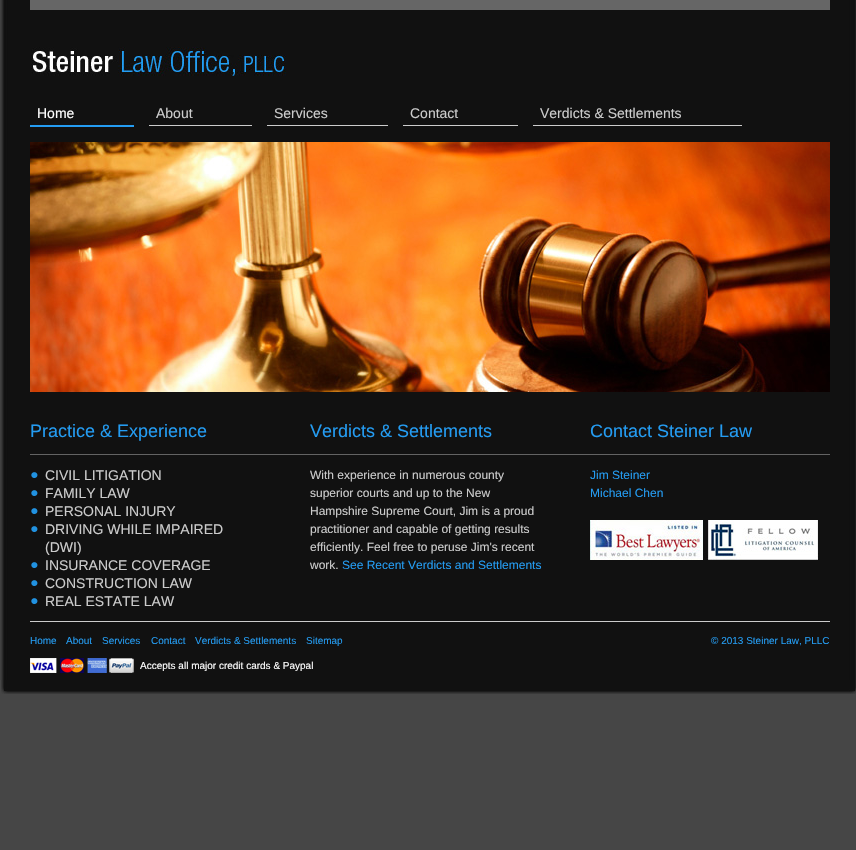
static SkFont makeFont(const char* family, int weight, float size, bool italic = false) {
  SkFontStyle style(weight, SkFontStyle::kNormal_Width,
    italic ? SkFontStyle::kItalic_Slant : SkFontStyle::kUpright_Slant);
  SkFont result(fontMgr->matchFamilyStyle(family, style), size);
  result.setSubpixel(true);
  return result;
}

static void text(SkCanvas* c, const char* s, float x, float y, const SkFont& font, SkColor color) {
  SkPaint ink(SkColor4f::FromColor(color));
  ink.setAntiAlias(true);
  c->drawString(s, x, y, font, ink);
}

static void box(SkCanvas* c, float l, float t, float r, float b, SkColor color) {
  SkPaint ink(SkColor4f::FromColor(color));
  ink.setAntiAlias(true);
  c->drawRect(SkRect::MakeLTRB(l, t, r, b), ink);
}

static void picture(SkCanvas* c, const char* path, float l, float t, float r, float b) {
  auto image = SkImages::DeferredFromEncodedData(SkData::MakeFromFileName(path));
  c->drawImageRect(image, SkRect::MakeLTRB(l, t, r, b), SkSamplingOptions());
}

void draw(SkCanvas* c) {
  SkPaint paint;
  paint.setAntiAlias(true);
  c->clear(0xff464646);
  picture(c, "img_01.png", 0, 0, 856, 680);
  box(c, 30, 0, 830, 10, 0xff666666);
  picture(c, "img_02.png", 31, 47, 286, 76);
  box(c, 30, 125, 134, 127, 0xff249cf2);
  SkFont face1 = makeFont("Liberation Sans", 400, 14);
  text(c, "Home", 37, 118, face1, 0xffffffff);
  box(c, 149, 125, 252, 126, 0xffcccccc);
  text(c, "About", 156, 118, face1, 0xffcccccc);
  box(c, 267, 125, 388, 126, 0xffcccccc);
  text(c, "Services", 274, 118, face1, 0xffcccccc);
  box(c, 403, 125, 518, 126, 0xffcccccc);
  text(c, "Contact", 410, 118, face1, 0xffcccccc);
  box(c, 533, 125, 742, 126, 0xffcccccc);
  text(c, "Verdicts & Settlements", 540, 118, face1, 0xffcccccc);
  picture(c, "img_03.png", 30, 142, 830, 392);
  box(c, 30, 454, 830, 455, 0xff636363);
  SkFont face2 = makeFont("Liberation Sans", 400, 18);
  text(c, "Practice & Experience", 30, 437, face2, 0xff249cf2);
  picture(c, "img_04.png", 31, 472, 38, 478);
  text(c, "CIVIL LITIGATION", 45, 480, face1, 0xffcccccc);
  picture(c, "img_04.png", 31, 490, 38, 496);
  text(c, "FAMILY LAW", 45, 498, face1, 0xffcccccc);
  picture(c, "img_04.png", 31, 508, 38, 514);
  text(c, "PERSONAL INJURY", 45, 516, face1, 0xffcccccc);
  picture(c, "img_04.png", 31, 526, 38, 532);
  text(c, "DRIVING WHILE IMPAIRED", 45, 534, face1, 0xffcccccc);
  text(c, "(DWI)", 45, 552, face1, 0xffcccccc);
  picture(c, "img_04.png", 31, 562, 38, 568);
  text(c, "INSURANCE COVERAGE", 45, 570, face1, 0xffcccccc);
  picture(c, "img_04.png", 31, 580, 38, 586);
  text(c, "CONSTRUCTION LAW", 45, 588, face1, 0xffcccccc);
  picture(c, "img_04.png", 31, 598, 38, 604);
  text(c, "REAL ESTATE LAW", 45, 606, face1, 0xffcccccc);
  text(c, "Verdicts & Settlements", 310, 437, face2, 0xff249cf2);
  SkFont face3 = makeFont("Liberation Sans", 400, 12);
  text(c, "With experience in numerous county", 310, 479, face3, 0xffcccccc);
  text(c, "superior courts and up to the New", 310, 497, face3, 0xffcccccc);
  text(c, "Hampshire Supreme Court, Jim is a proud", 310, 515, face3, 0xffcccccc);
  text(c, "practitioner and capable of getting results", 310, 533, face3, 0xffcccccc);
  text(c, "efficiently. Feel free to peruse Jim's recent", 310, 551, face3, 0xffcccccc);
  text(c, "work.", 310, 569, face3, 0xffcccccc);
  text(c, "See Recent Verdicts and Settlements", 342, 569, face3, 0xff249cf2);
  text(c, "Contact Steiner Law", 590, 437, face2, 0xff249cf2);
  text(c, "Jim Steiner", 590, 479, face3, 0xff249cf2);
  text(c, "Michael Chen", 590, 497, face3, 0xff249cf2);
  picture(c, "img_05.png", 590, 520, 819, 560);
  box(c, 30, 621, 830, 622, 0xffcccccc);
  SkFont face4 = makeFont("Liberation Sans", 400, 10);
  text(c, "Home", 30, 644, face4, 0xff249cf2);
  text(c, "About", 66, 644, face4, 0xff249cf2);
  text(c, "Services", 102, 644, face4, 0xff249cf2);
  text(c, "Contact", 151, 644, face4, 0xff249cf2);
  text(c, "Verdicts & Settlements", 195, 644, face4, 0xff249cf2);
  text(c, "Sitemap", 306, 644, face4, 0xff249cf2);
  text(c, "© 2013 Steiner Law, PLLC", 711, 644, face4, 0xff249cf2);
  picture(c, "img_06.png", 30, 658, 134, 673);
  text(c, "Accepts all major credit cards & Paypal", 140, 669, face4, 0xffffffff);
  picture(c, "img_07.png", 1, 680, 856, 694);
}
